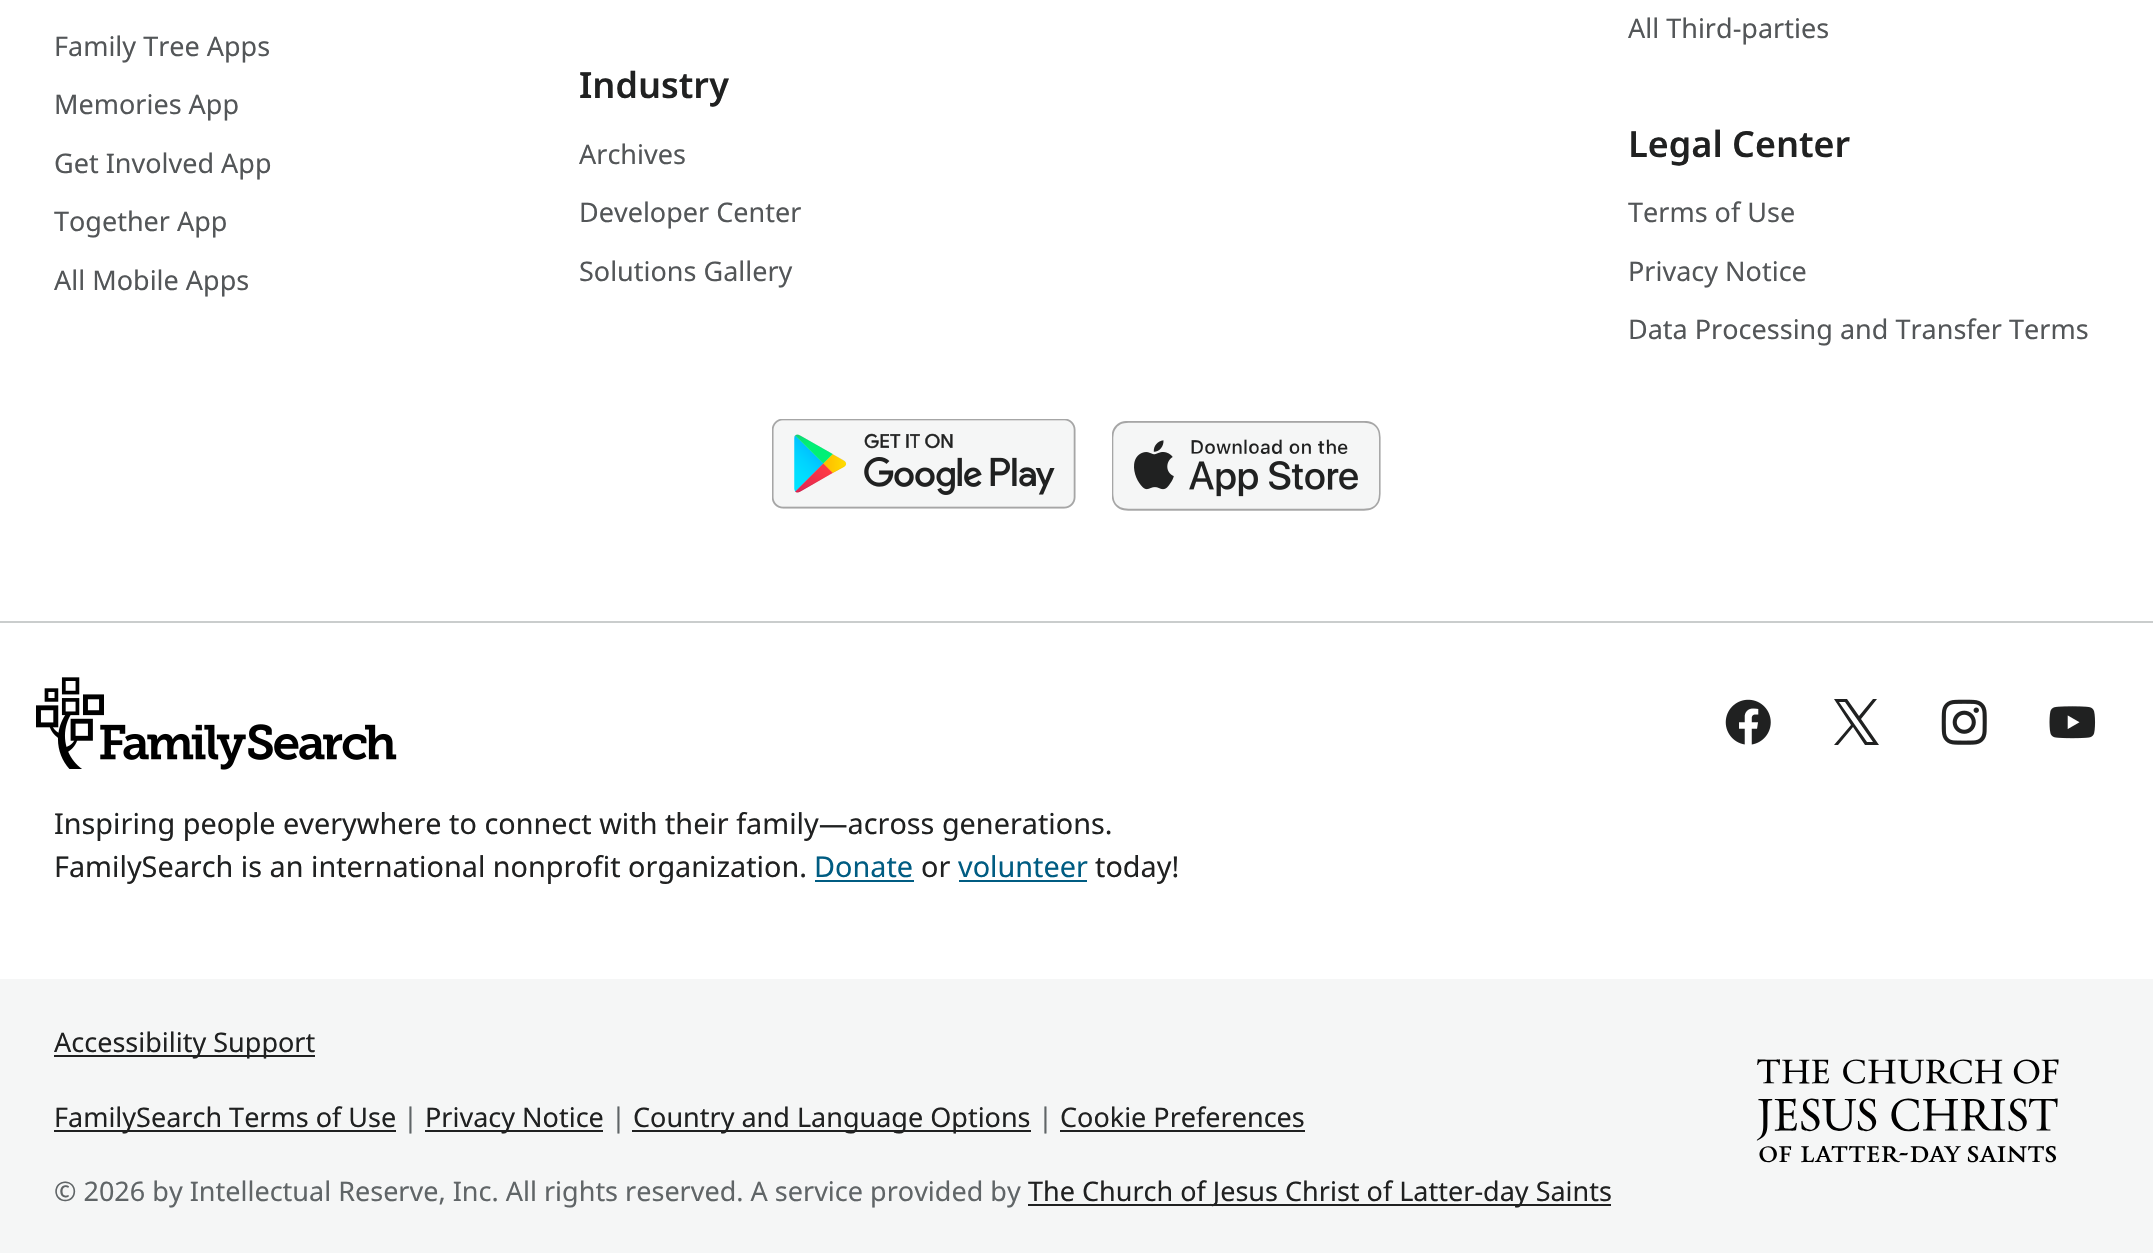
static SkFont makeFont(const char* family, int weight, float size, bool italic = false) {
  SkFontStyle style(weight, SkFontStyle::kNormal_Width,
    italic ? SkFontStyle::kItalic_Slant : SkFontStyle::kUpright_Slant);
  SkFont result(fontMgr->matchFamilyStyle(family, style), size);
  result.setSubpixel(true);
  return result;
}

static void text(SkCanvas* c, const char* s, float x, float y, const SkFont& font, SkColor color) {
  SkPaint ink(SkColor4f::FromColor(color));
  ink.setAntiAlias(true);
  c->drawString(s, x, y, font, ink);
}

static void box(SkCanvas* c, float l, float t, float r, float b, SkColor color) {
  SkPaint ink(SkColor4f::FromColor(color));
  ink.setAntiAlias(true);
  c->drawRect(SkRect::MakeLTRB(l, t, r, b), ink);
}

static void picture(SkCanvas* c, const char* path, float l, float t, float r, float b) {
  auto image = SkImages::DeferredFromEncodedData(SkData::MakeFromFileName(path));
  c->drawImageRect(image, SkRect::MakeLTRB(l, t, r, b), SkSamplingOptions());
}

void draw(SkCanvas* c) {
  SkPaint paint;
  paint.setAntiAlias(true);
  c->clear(0xffffffff);
  SkFont face1 = makeFont("Noto Sans", 400, 27);
  text(c, "All Third-parties", 1628, 38, face1, 0xff535658);
  text(c, "Family Tree Apps", 54, 56, face1, 0xff535658);
  text(c, "Memories App", 54, 114, face1, 0xff535658);
  text(c, "Get Involved App", 54, 173, face1, 0xff535658);
  text(c, "Together App", 54, 231, face1, 0xff535658);
  text(c, "All Mobile Apps", 54, 290, face1, 0xff535658);
  SkFont face2 = makeFont("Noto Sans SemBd", 600, 36);
  text(c, "Industry", 579, 98, face2, 0xff202121);
  text(c, "Archives", 579, 164, face1, 0xff535658);
  text(c, "Developer Center", 579, 222, face1, 0xff535658);
  text(c, "Solutions Gallery", 579, 281, face1, 0xff535658);
  text(c, "Legal Center", 1628, 157, face2, 0xff202121);
  text(c, "Terms of Use", 1628, 222, face1, 0xff535658);
  text(c, "Privacy Notice", 1628, 281, face1, 0xff535658);
  text(c, "Data Processing and Transfer Terms", 1628, 339, face1, 0xff535658);
  picture(c, "img_01.png", 772, 419, 1076, 509);
  picture(c, "img_02.png", 1112, 421, 1381, 511);
  box(c, 0, 621, 2153, 623, 0xffcacdcd);
  picture(c, "img_03.png", 1725, 699, 1771, 745);
  paint.setColor(0xff202121);
  c->drawPath(SkPathBuilder().moveTo(1879, 745).lineTo(1865, 745).lineTo(1853, 727).lineTo(1838, 745).lineTo(1834, 745).lineTo(1851, 725).lineTo(1834, 699).lineTo(1847, 699).lineTo(1859, 716).lineTo(1873, 699).lineTo(1877, 699).lineTo(1861, 719).close().moveTo(1855, 725).lineTo(1867, 742).lineTo(1873, 742).lineTo(1845, 702).lineTo(1839, 702).close().detach(), paint);
  picture(c, "img_04.png", 1941, 699, 1987, 745);
  picture(c, "img_05.png", 2049, 706, 2096, 739);
  picture(c, "img_06.png", 36, 677, 397, 770);
  SkFont face3 = makeFont("Noto Sans", 400, 28.8f);
  text(c, "Inspiring people everywhere to connect with their family—across generations.", 54, 834, face3, 0xff202121);
  text(c, "FamilySearch is an international nonprofit organization.", 54, 877, face3, 0xff202121);
  text(c, "Donate", 814, 877, face3, 0xff005c82);
  box(c, 815, 880, 914, 882, 0xff005c82);
  text(c, "or", 921, 877, face3, 0xff202121);
  text(c, "volunteer", 958, 877, face3, 0xff005c82);
  box(c, 959, 880, 1087, 882, 0xff005c82);
  text(c, "today!", 1095, 877, face3, 0xff202121);
  box(c, 0, 979, 2153, 1253, 0xfff5f6f6);
  box(c, 54, 1055, 315, 1057, 0xff202121);
  text(c, "Accessibility Support", 54, 1052, face1, 0xff202121);
  box(c, 54, 1130, 396, 1132, 0xff202121);
  text(c, "FamilySearch Terms of Use", 54, 1127, face1, 0xff202121);
  text(c, "|", 403, 1127, face1, 0xff606567);
  box(c, 425, 1130, 603, 1132, 0xff202121);
  text(c, "Privacy Notice", 425, 1127, face1, 0xff202121);
  text(c, "|", 611, 1127, face1, 0xff606567);
  box(c, 632, 1130, 1031, 1132, 0xff202121);
  text(c, "Country and Language Options", 633, 1127, face1, 0xff202121);
  text(c, "|", 1038, 1127, face1, 0xff606567);
  text(c, "Cookie Preferences", 1060, 1127, face1, 0xff202121);
  box(c, 1060, 1130, 1305, 1132, 0xff202121);
  text(c, "© 2026 by Intellectual Reserve, Inc. All rights reserved. A service provided by", 54, 1201, face1, 0xff606567);
  box(c, 1028, 1204, 1611, 1206, 0xff202121);
  text(c, "The Church of Jesus Christ of Latter-day Saints", 1028, 1201, face1, 0xff202121);
  picture(c, "img_07.png", 1756, 1059, 2059, 1163);
}
